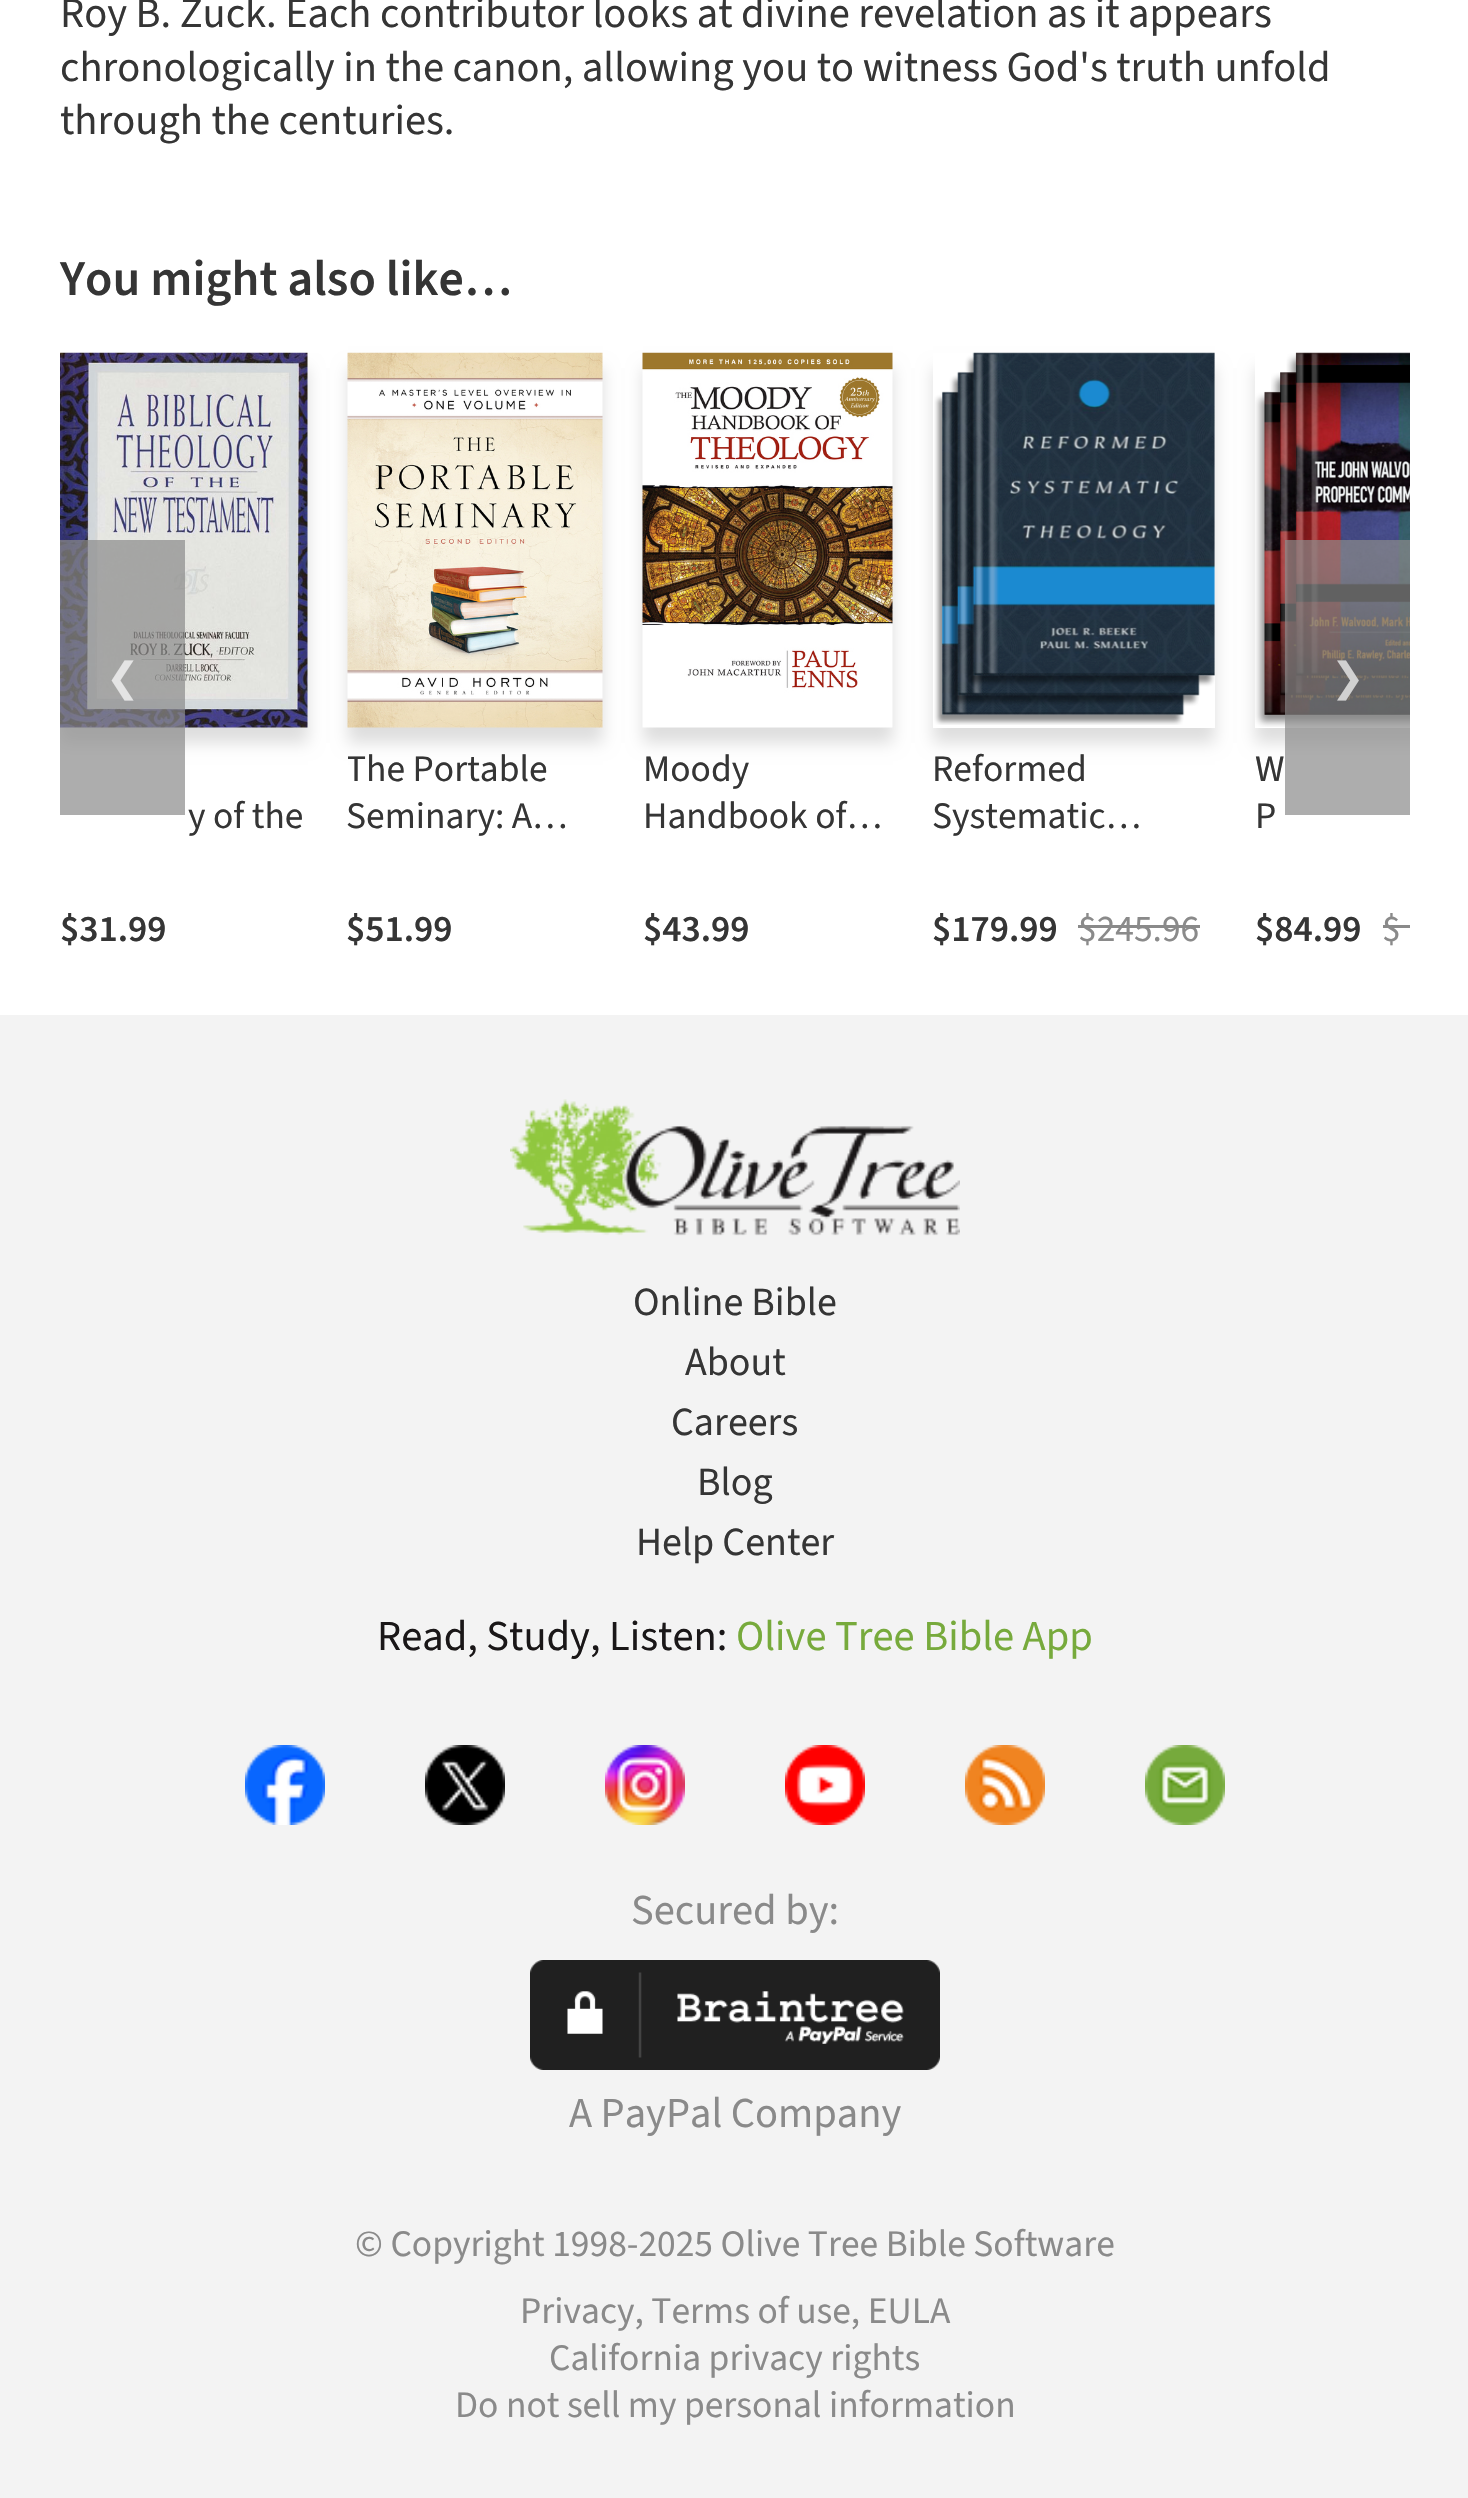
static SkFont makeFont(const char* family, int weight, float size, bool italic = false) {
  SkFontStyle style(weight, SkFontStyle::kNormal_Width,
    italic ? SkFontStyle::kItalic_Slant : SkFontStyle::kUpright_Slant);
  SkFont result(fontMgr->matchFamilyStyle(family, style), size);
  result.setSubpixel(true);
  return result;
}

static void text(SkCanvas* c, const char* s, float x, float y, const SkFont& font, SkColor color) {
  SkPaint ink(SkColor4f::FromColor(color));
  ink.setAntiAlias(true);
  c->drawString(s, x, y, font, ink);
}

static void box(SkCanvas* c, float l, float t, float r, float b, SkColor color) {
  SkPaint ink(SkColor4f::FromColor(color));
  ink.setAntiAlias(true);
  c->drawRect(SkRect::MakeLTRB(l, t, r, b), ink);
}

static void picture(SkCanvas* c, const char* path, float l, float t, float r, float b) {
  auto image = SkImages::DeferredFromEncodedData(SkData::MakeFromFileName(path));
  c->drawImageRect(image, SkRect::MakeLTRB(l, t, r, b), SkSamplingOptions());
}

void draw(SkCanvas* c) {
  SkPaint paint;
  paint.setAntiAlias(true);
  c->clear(0xffffffff);
  SkFont face1 = makeFont("Source Sans 3", 400, 42.5f);
  text(c, "Roy B. Zuck. Each contributor looks at divine revelation as it appears", 60, 27, face1, 0xff353535);
  text(c, "chronologically in the canon, allowing you to witness God's truth unfold", 60, 81, face1, 0xff353535);
  text(c, "through the centuries.", 60, 134, face1, 0xff353535);
  SkFont face2 = makeFont("Source Sans 3", 600, 50);
  text(c, "You might also like…", 60, 295, face2, 0xff353535);
  c->save();
  c->clipRect(SkRect::MakeLTRB(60, 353, 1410, 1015));
  paint.setColor(0x21000000);
  paint.setMaskFilter(SkMaskFilter::MakeBlur(kNormal_SkBlurStyle, 7.5f));
  c->drawRect(SkRect::MakeLTRB(60, 368, 308, 743), paint);
  paint.setMaskFilter(nullptr);
  c->restore();
  picture(c, "img_01.png", 60, 352, 308, 728);
  box(c, 60, 540, 185, 815, 0xb38a8a8a);
  SkFont face3 = makeFont("DejaVu Sans", 400, 40);
  text(c, "❮", 106, 691, face3, 0xffe4e4e4);
  c->save();
  c->clipRect(SkRect::MakeLTRB(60, 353, 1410, 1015));
  c->clipPath(SkPathBuilder(SkPathFillType::kEvenOdd).moveTo(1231, 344).lineTo(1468, 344).lineTo(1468, 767).lineTo(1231, 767).close().moveTo(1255, 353).lineTo(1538, 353).lineTo(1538, 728).lineTo(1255, 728).close().detach(), true);
  paint.setMaskFilter(SkMaskFilter::MakeBlur(kNormal_SkBlurStyle, 7.5f));
  c->drawRect(SkRect::MakeLTRB(1255, 368, 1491, 743), paint);
  paint.setMaskFilter(nullptr);
  c->restore();
  picture(c, "img_05.png", 1255, 352, 1410, 727);
  box(c, 1285, 540, 1410, 815, 0xb38a8a8a);
  text(c, "❯", 1331, 691, face3, 0xffd1d1d1);
  SkFont face4 = makeFont("Source Sans 3", 400, 37.5f);
  text(c, "y of the", 188, 828, face4, 0xff353535);
  SkFont face5 = makeFont("Source Sans 3", 600, 37.5f);
  text(c, "$31.99", 60, 941, face5, 0xff353535);
  paint.setMaskFilter(SkMaskFilter::MakeBlur(kNormal_SkBlurStyle, 7.5f));
  c->drawRect(SkRect::MakeLTRB(348, 368, 603, 743), paint);
  paint.setMaskFilter(nullptr);
  picture(c, "img_02.png", 347, 352, 603, 728);
  c->save();
  c->clipRect(SkRect::MakeLTRB(348, 748, 603, 843));
  text(c, "The Portable", 346, 781, face4, 0xff353535);
  c->restore();
  text(c, "Seminary: A…", 346, 828, face4, 0xff353535);
  text(c, "$51.99", 346, 941, face5, 0xff353535);
  paint.setMaskFilter(SkMaskFilter::MakeBlur(kNormal_SkBlurStyle, 7.5f));
  c->drawRect(SkRect::MakeLTRB(643, 368, 893, 743), paint);
  paint.setMaskFilter(nullptr);
  picture(c, "img_03.png", 642, 352, 893, 728);
  text(c, "Moody", 643, 781, face4, 0xff353535);
  text(c, "Handbook of…", 643, 828, face4, 0xff353535);
  text(c, "$43.99", 643, 941, face5, 0xff353535);
  c->save();
  c->clipPath(SkPathBuilder(SkPathFillType::kEvenOdd).moveTo(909, 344).lineTo(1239, 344).lineTo(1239, 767).lineTo(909, 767).close().moveTo(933, 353).lineTo(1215, 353).lineTo(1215, 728).lineTo(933, 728).close().detach(), true);
  paint.setMaskFilter(SkMaskFilter::MakeBlur(kNormal_SkBlurStyle, 7.5f));
  c->drawRect(SkRect::MakeLTRB(933, 368, 1215, 743), paint);
  paint.setMaskFilter(nullptr);
  c->restore();
  picture(c, "img_04.png", 934, 352, 1215, 725);
  text(c, "Reformed", 932, 781, face4, 0xff353535);
  text(c, "Systematic…", 932, 828, face4, 0xff353535);
  text(c, "$179.99", 932, 941, face5, 0xff353535);
  text(c, "$245.96", 1078, 941, face4, 0xff8a8a8a);
  box(c, 1078, 925, 1200, 928, 0xff8a8a8a);
  text(c, "W", 1255, 781, face4, 0xff353535);
  text(c, "P", 1255, 828, face4, 0xff353535);
  text(c, "$84.99", 1255, 941, face5, 0xff353535);
  text(c, "$", 1382, 941, face4, 0xff8a8a8a);
  box(c, 1383, 925, 1410, 928, 0xff8a8a8a);
  box(c, 0, 1015, 1468, 2498, 0xfff3f3f3);
  picture(c, "img_06.png", 510, 1099, 960, 1236);
  SkFont face6 = makeFont("Source Sans 3", 400, 40);
  text(c, "Online Bible", 633, 1315, face6, 0xff353535);
  text(c, "About", 685, 1375, face6, 0xff353535);
  text(c, "Careers", 671, 1435, face6, 0xff353535);
  text(c, "Blog", 697, 1495, face6, 0xff353535);
  text(c, "Help Center", 636, 1555, face6, 0xff353535);
  text(c, "Read, Study, Listen:", 377, 1650, face1, 0xff1a1718);
  text(c, "Olive Tree Bible App", 736, 1650, face1, 0xff77aa3c);
  picture(c, "img_07.png", 245, 1745, 325, 1825);
  picture(c, "img_08.png", 425, 1745, 505, 1825);
  picture(c, "img_09.png", 605, 1745, 685, 1825);
  picture(c, "img_10.png", 785, 1745, 865, 1825);
  picture(c, "img_11.png", 965, 1745, 1045, 1825);
  picture(c, "img_12.png", 1145, 1745, 1225, 1825);
  text(c, "Secured by:", 631, 1924, face1, 0xff8a8a8a);
  picture(c, "img_13.png", 530, 1960, 940, 2070);
  text(c, "A PayPal Company", 569, 2127, face1, 0xff8a8a8a);
  text(c, "© Copyright 1998-2025 Olive Tree Bible Software", 355, 2256, face4, 0xff8a8a8a);
  text(c, "Privacy, Terms of use, EULA", 520, 2323, face4, 0xff8a8a8a);
  text(c, "California privacy rights", 549, 2370, face4, 0xff8a8a8a);
  text(c, "Do not sell my personal information", 455, 2417, face4, 0xff8a8a8a);
}
